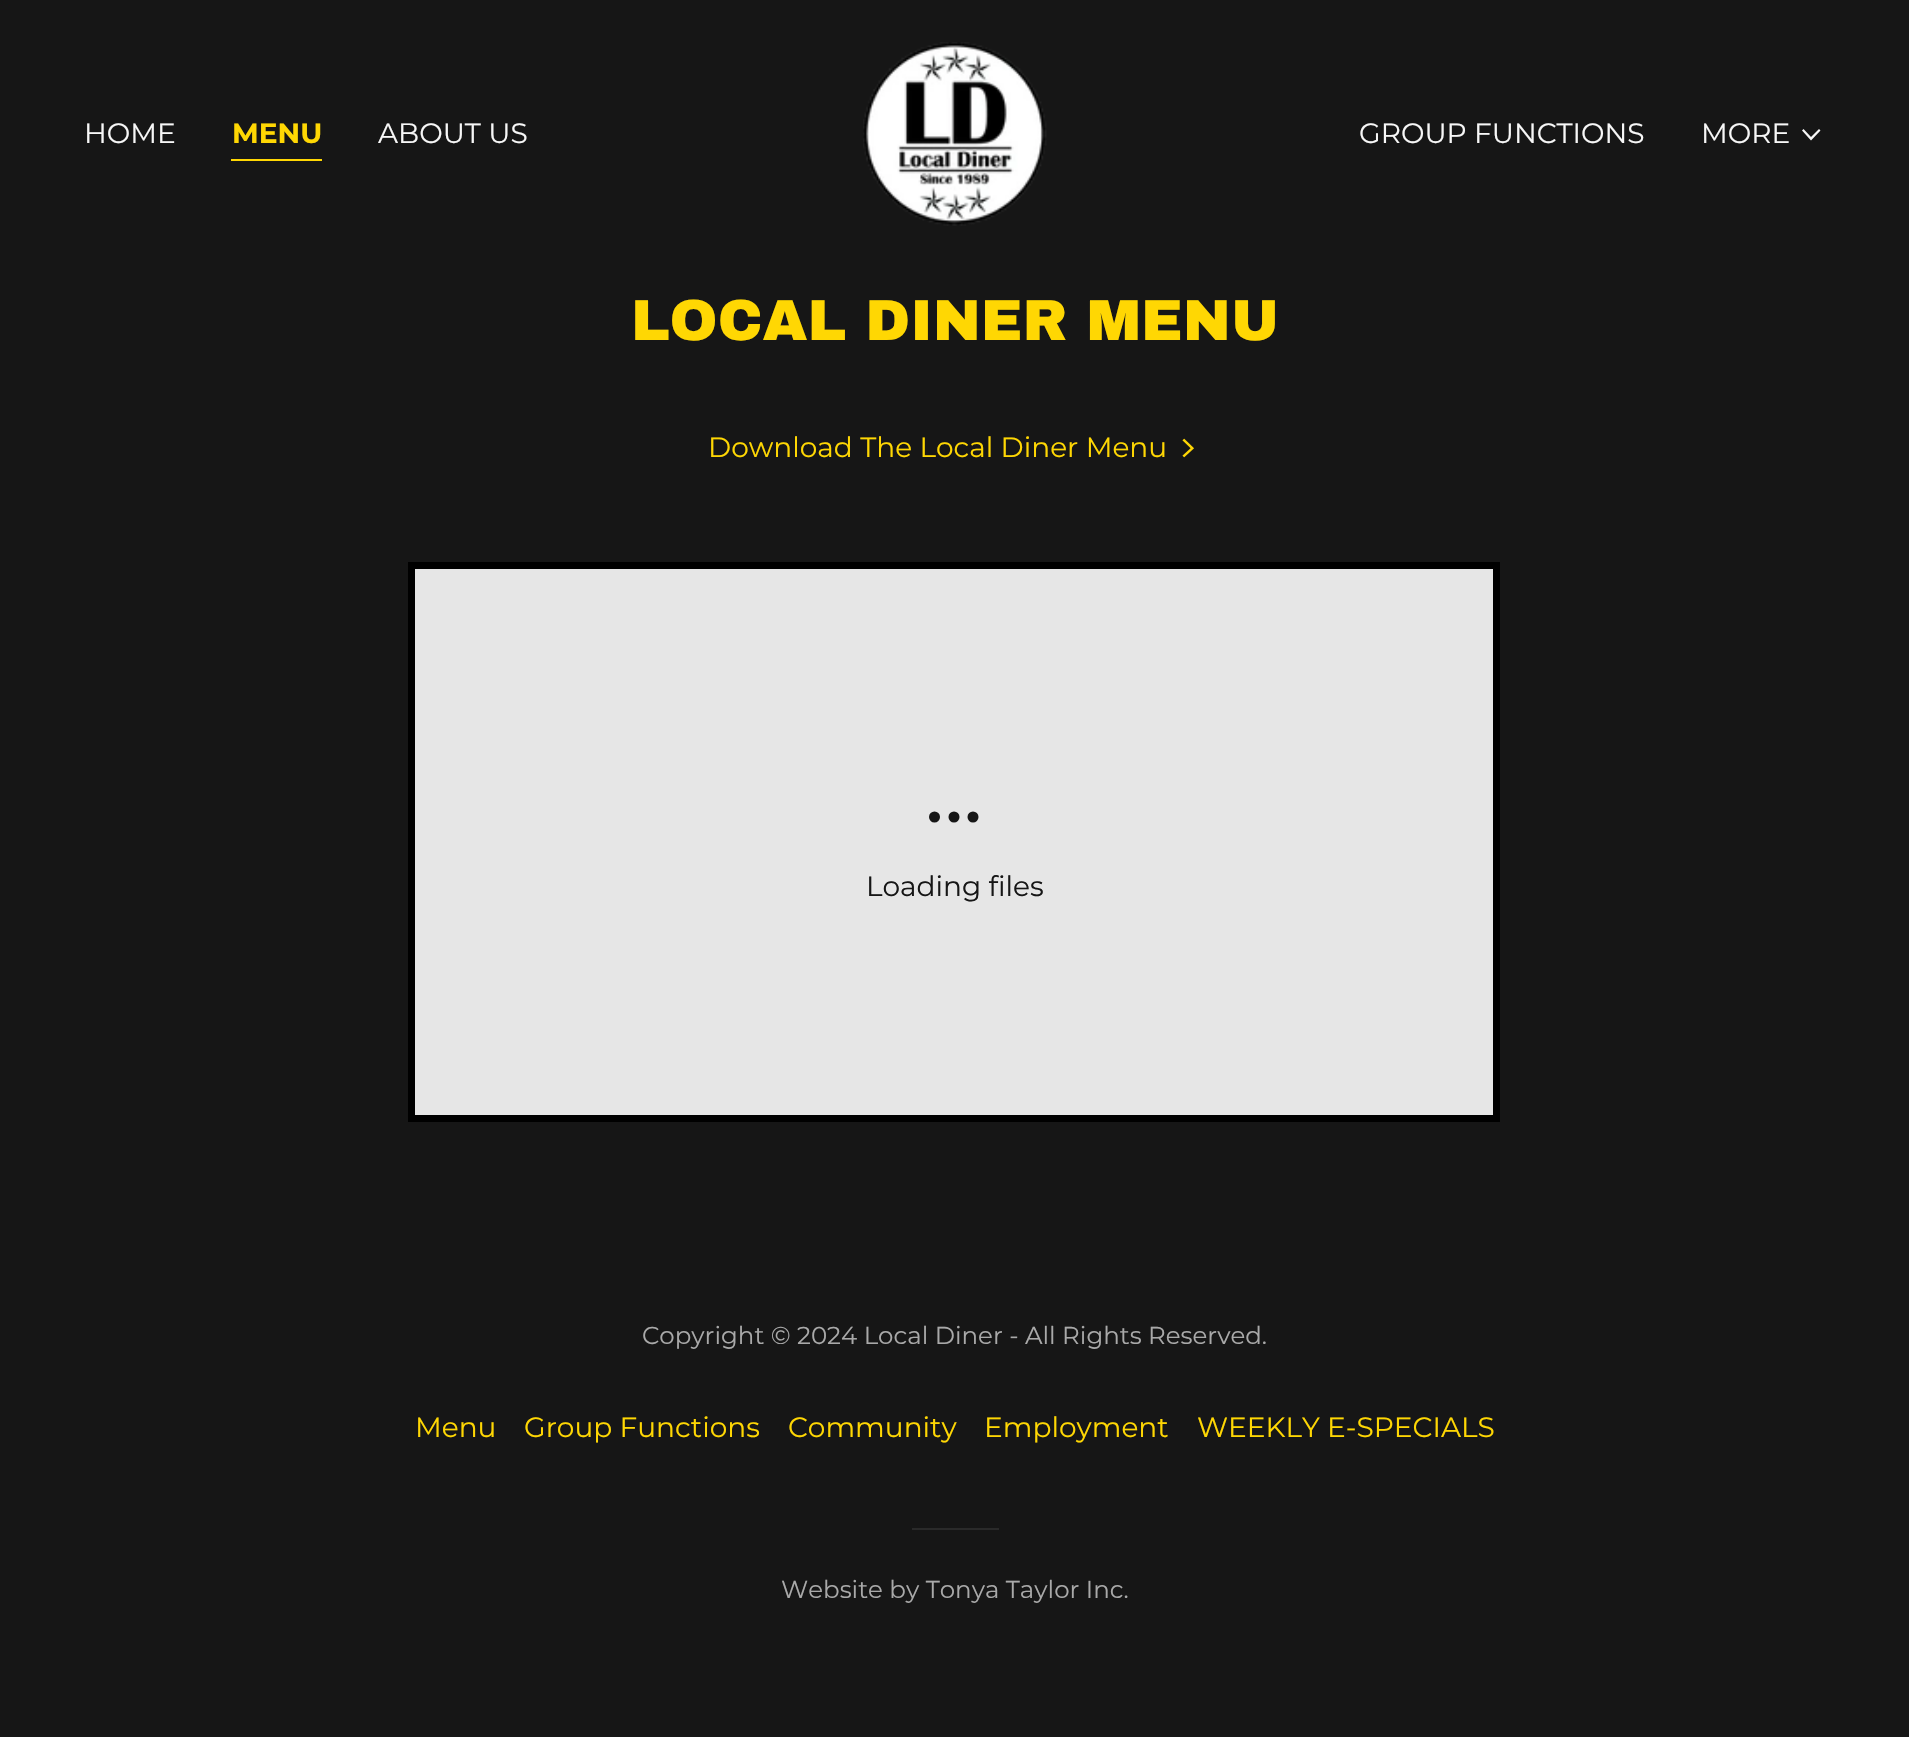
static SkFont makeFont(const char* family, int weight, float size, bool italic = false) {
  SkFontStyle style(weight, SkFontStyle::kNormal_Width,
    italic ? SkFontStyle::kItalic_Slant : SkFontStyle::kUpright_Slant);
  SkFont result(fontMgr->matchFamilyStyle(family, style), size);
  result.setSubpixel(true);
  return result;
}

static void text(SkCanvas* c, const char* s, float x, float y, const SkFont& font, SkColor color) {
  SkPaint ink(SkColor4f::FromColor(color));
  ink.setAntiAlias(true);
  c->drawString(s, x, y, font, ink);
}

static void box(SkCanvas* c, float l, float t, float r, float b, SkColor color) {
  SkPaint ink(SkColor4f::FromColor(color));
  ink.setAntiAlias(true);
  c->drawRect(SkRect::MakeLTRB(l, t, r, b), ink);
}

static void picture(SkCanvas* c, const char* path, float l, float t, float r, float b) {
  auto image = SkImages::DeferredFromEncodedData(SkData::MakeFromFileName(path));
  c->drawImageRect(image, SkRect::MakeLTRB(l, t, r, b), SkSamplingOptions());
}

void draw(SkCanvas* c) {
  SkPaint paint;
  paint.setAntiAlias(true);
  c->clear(0xff161616);
  SkFont face1 = makeFont("Montserrat", 400, 28);
  text(c, "HOME", 84, 143, face1, 0xfff7f7f7);
  box(c, 231, 159, 322, 161, 0xffffd703);
  SkFont face2 = makeFont("Montserrat", 700, 28);
  text(c, "MENU", 232, 143, face2, 0xffffd703);
  text(c, "ABOUT US", 378, 143, face1, 0xfff7f7f7);
  picture(c, "img_01.png", 863, 42, 1047, 226);
  text(c, "GROUP FUNCTIONS", 1359, 143, face1, 0xfff7f7f7);
  text(c, "MORE", 1701, 143, face1, 0xfff7f7f7);
  paint.setColor(0xfff7f7f7);
  c->drawPath(SkPathBuilder(SkPathFillType::kEvenOdd).moveTo(1819, 129).lineTo(1811, 137).lineTo(1803.5f, 129).lineTo(1802, 130.5f).lineTo(1811, 140.5f).lineTo(1820.5f, 130.5f).close().detach(), paint);
  SkFont face3 = makeFont("Archivo Black", 900, 57.75f);
  text(c, "LOCAL DINER MENU", 631, 340, face3, 0xffffd703);
  text(c, "Download The Local Diner Menu", 708, 457, face1, 0xffffd703);
  picture(c, "img_02.png", 1182, 438, 1194, 458);
  box(c, 408, 562, 1500, 1122, 0xff000000);
  box(c, 415, 569, 1493, 1115, 0xffe6e6e6);
  paint.setColor(0xff161616);
  c->drawCircle(934.5f, 817, 5.5f, paint);
  c->drawCircle(954, 817, 5.5f, paint);
  c->drawCircle(973, 817, 5.5f, paint);
  text(c, "Loading files", 866, 896, face1, 0xff161616);
  SkFont face4 = makeFont("Montserrat", 400, 24.5f);
  text(c, "Copyright © 2024 Local Diner - All Rights Reserved.", 642, 1344, face4, 0xffa9a9a9);
  text(c, "Menu", 415, 1437, face1, 0xffffd703);
  text(c, "Group Functions", 524, 1437, face1, 0xffffd703);
  text(c, "Community", 788, 1437, face1, 0xffffd703);
  text(c, "Employment", 984, 1437, face1, 0xffffd703);
  text(c, "WEEKLY E-SPECIALS", 1197, 1437, face1, 0xffffd703);
  box(c, 912, 1528, 999, 1530, 0xff2a2a2a);
  text(c, "Website by Tonya Taylor Inc.", 781, 1598, face4, 0xffa9a9a9);
}
